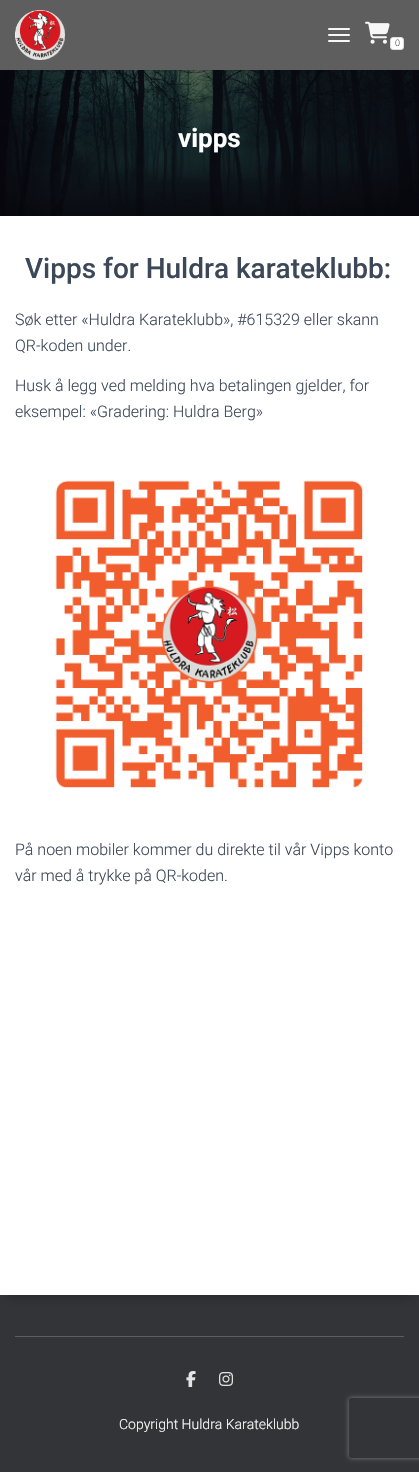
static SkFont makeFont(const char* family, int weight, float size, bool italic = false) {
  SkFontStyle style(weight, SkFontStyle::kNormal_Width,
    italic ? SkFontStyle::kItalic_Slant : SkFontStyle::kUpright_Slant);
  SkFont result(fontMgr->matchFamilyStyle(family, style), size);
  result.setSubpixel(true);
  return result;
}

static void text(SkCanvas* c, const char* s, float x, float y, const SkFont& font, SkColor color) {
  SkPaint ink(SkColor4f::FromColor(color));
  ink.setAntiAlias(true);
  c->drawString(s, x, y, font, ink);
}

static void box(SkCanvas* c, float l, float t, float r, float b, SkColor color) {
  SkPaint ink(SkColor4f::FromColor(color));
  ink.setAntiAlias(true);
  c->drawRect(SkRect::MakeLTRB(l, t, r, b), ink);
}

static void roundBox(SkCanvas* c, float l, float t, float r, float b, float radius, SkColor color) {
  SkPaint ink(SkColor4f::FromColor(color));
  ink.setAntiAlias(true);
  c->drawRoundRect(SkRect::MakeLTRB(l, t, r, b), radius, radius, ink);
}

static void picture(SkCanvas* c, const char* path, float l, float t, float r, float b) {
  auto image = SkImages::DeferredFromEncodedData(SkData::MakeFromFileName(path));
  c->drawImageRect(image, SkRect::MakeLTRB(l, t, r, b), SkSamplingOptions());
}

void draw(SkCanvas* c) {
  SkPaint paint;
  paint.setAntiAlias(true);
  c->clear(0xff323437);
  picture(c, "img_03.png", 0, 70, 419, 216);
  paint.setColor(0x6b000000);
  paint.setMaskFilter(SkMaskFilter::MakeBlur(kNormal_SkBlurStyle, 5));
  c->drawRect(SkRect::MakeLTRB(6, 7, 413, 65), paint);
  paint.setMaskFilter(nullptr);
  box(c, 0, 0, 419, 70, 0xff5e5e5e);
  picture(c, "img_01.png", 15, 10, 65, 60);
  roundBox(c, 328, 28, 350, 30, 1, 0xfff7f7f7);
  roundBox(c, 328, 34, 350, 36, 1, 0xfff7f7f7);
  roundBox(c, 328, 40, 350, 42, 1, 0xfff7f7f7);
  picture(c, "img_02.png", 365, 21, 390, 44);
  paint.setColor(0xffffffff);
  c->drawRoundRect(SkRect::MakeLTRB(390.5f, 37.5f, 403.5f, 49.5f), 2.5f, 2.5f, paint);
  paint.setStyle(SkPaint::kStroke_Style);
  paint.setStrokeWidth(1);
  paint.setColor(0xffdddddd);
  c->drawRoundRect(SkRect::MakeLTRB(390.5f, 37.5f, 403.5f, 49.5f), 2.5f, 2.5f, paint);
  SkFont face1 = makeFont("Roboto", 300, 9);
  text(c, "0", 395, 46, face1, 0xff555555);
  SkFont face2 = makeFont("Roboto", 700, 26);
  text(c, "vipps", 178, 147, face2, 0xffffffff);
  paint.setStyle(SkPaint::kFill_Style);
  paint.setColor(0x33000000);
  paint.setMaskFilter(SkMaskFilter::MakeBlur(kNormal_SkBlurStyle, 5));
  c->drawRect(SkRect::MakeLTRB(5, 229, 414, 1298), paint);
  paint.setMaskFilter(nullptr);
  box(c, 0, 216, 419, 1295, 0xffffffff);
  SkFont face3 = makeFont("Roboto", 500, 28);
  text(c, "Vipps for Huldra karateklubb:", 25, 278, face3, 0xff3c4858);
  SkFont face4 = makeFont("Roboto", 300, 16);
  text(c, "Søk etter «Huldra Karateklubb», #615329 eller skann", 15, 325, face4, 0xff3c4858);
  text(c, "QR-koden under.", 15, 351, face4, 0xff3c4858);
  text(c, "Husk å legg ved melding hva betalingen gjelder, for", 15, 391, face4, 0xff3c4858);
  text(c, "eksempel: «Gradering: Huldra Berg»", 15, 417, face4, 0xff3c4858);
  picture(c, "img_04.png", 55, 480, 363, 788);
  text(c, "På noen mobiler kommer du direkte til vår Vipps konto", 15, 855, face4, 0xff3c4858);
  text(c, "vår med å trykke på QR-koden.", 15, 881, face4, 0xff3c4858);
  box(c, 15, 1336, 404, 1337, 0xff5e5e5e);
  picture(c, "img_05.png", 186, 1371, 196, 1387);
  picture(c, "img_06.png", 219, 1372, 233, 1386);
  SkFont face5 = makeFont("Roboto", 300, 14);
  text(c, "Copyright Huldra Karateklubb", 119, 1429, face5, 0xffffffff);
  c->save();
  c->clipPath(SkPathBuilder(SkPathFillType::kEvenOdd).moveTo(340, 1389).lineTo(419, 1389).lineTo(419, 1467).lineTo(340, 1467).close().moveTo(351, 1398).lineTo(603, 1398).cubicTo(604, 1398, 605, 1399, 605, 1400).lineTo(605, 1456).cubicTo(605, 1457, 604, 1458, 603, 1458).lineTo(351, 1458).cubicTo(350, 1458, 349, 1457, 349, 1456).lineTo(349, 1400).cubicTo(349, 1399, 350, 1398, 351, 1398).close().detach(), true);
  paint.setColor(0xff808080);
  paint.setMaskFilter(SkMaskFilter::MakeBlur(kNormal_SkBlurStyle, 2.5f));
  c->drawRoundRect(SkRect::MakeLTRB(349, 1398, 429, 1458), 2, 2, paint);
  paint.setMaskFilter(nullptr);
  c->restore();
}
